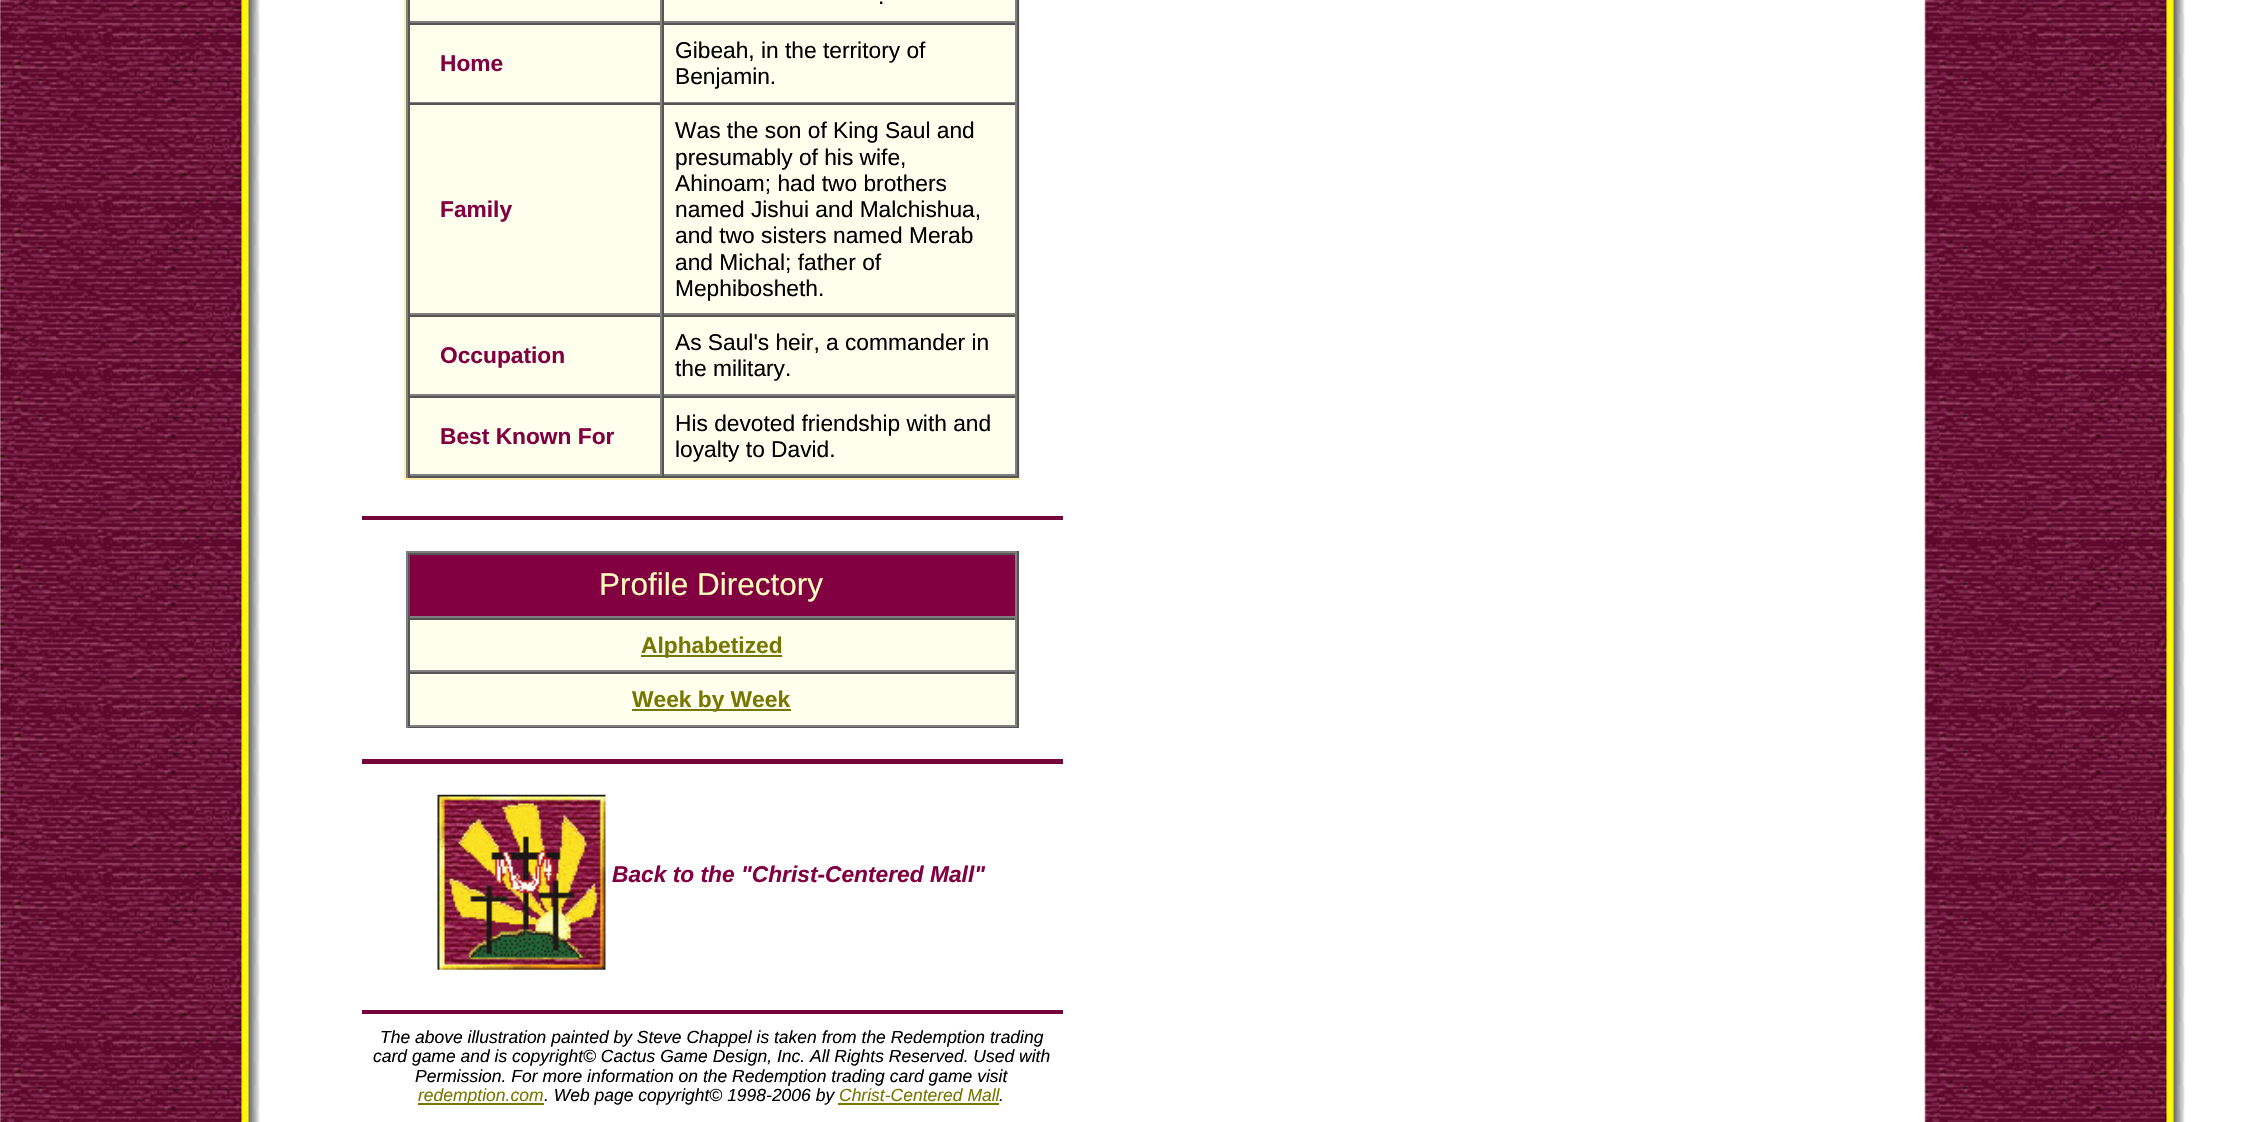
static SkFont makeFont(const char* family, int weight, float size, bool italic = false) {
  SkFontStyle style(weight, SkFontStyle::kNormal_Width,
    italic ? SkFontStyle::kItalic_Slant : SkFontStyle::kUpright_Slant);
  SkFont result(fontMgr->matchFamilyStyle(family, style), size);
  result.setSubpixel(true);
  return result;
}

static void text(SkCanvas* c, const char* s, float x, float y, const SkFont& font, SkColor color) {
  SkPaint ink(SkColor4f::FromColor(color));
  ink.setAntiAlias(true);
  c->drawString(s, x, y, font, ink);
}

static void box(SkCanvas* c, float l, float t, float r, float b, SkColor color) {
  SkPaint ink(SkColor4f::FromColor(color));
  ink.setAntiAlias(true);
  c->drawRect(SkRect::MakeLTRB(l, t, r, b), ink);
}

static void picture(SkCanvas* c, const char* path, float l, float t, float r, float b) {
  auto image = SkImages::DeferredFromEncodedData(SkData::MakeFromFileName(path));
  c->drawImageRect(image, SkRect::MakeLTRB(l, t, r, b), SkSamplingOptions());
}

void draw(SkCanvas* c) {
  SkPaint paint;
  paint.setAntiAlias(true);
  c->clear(0xffffffff);
  picture(c, "img_01.png", 0, 0, 2185, 1122);
  box(c, 404, 0, 1020, 480, 0xffffeeaa);
  box(c, 1017, 0, 1019, 478, 0xff555555);
  box(c, 406, 476, 1019, 478, 0xff555555);
  box(c, 406, 0, 408, 478, 0xff808080);
  box(c, 410, 0, 1015, 21, 0xffffffee);
  box(c, 660, 0, 662, 23, 0xff808080);
  box(c, 408, 21, 662, 23, 0xff808080);
  box(c, 408, 0, 410, 23, 0xff555555);
  box(c, 1015, 0, 1017, 23, 0xff808080);
  box(c, 662, 21, 1017, 23, 0xff808080);
  box(c, 662, 0, 664, 23, 0xff555555);
  SkFont face1 = makeFont("Liberation Sans", 400, 22.75f);
  text(c, ".", 878, 4, face1, 0xff000000);
  box(c, 410, 25, 1015, 102, 0xffffffee);
  box(c, 408, 23, 1017, 25, 0xff555555);
  box(c, 660, 23, 662, 103, 0xff808080);
  box(c, 408, 102, 662, 103, 0xff808080);
  box(c, 408, 23, 410, 103, 0xff555555);
  SkFont face2 = makeFont("Liberation Sans", 700, 22.75f);
  text(c, "Home", 440, 71, face2, 0xff820041);
  box(c, 1015, 23, 1017, 103, 0xff808080);
  box(c, 662, 102, 1017, 103, 0xff808080);
  box(c, 662, 23, 664, 103, 0xff555555);
  text(c, "Gibeah, in the territory of", 675, 58, face1, 0xff000000);
  text(c, "Benjamin.", 675, 84, face1, 0xff000000);
  box(c, 410, 105, 1015, 313, 0xffffffee);
  box(c, 408, 103, 1017, 105, 0xff555555);
  box(c, 660, 103, 662, 315, 0xff808080);
  box(c, 408, 313, 662, 315, 0xff808080);
  box(c, 408, 103, 410, 315, 0xff555555);
  text(c, "Family", 440, 217, face2, 0xff820041);
  box(c, 1015, 103, 1017, 315, 0xff808080);
  box(c, 662, 313, 1017, 315, 0xff808080);
  box(c, 662, 103, 664, 315, 0xff555555);
  text(c, "Was the son of King Saul and", 675, 138, face1, 0xff000000);
  text(c, "presumably of his wife,", 675, 165, face1, 0xff000000);
  text(c, "Ahinoam; had two brothers", 675, 191, face1, 0xff000000);
  text(c, "named Jishui and Malchishua,", 675, 217, face1, 0xff000000);
  text(c, "and two sisters named Merab", 675, 243, face1, 0xff000000);
  text(c, "and Michal; father of", 675, 270, face1, 0xff000000);
  text(c, "Mephibosheth.", 675, 296, face1, 0xff000000);
  box(c, 410, 317, 1015, 394, 0xffffffee);
  box(c, 408, 315, 1017, 317, 0xff555555);
  box(c, 660, 315, 662, 396, 0xff808080);
  box(c, 408, 394, 662, 396, 0xff808080);
  box(c, 408, 315, 410, 396, 0xff555555);
  text(c, "Occupation", 440, 363, face2, 0xff820041);
  box(c, 1015, 315, 1017, 396, 0xff808080);
  box(c, 662, 394, 1017, 396, 0xff808080);
  box(c, 662, 315, 664, 396, 0xff555555);
  text(c, "As Saul's heir, a commander in", 675, 350, face1, 0xff000000);
  text(c, "the military.", 675, 376, face1, 0xff000000);
  box(c, 410, 398, 1015, 474, 0xffffffee);
  box(c, 408, 396, 1017, 398, 0xff555555);
  box(c, 660, 396, 662, 476, 0xff808080);
  box(c, 408, 474, 662, 476, 0xff808080);
  box(c, 408, 396, 410, 476, 0xff555555);
  text(c, "Best Known For", 440, 444, face2, 0xff820041);
  box(c, 1015, 396, 1017, 476, 0xff808080);
  box(c, 662, 474, 1017, 476, 0xff808080);
  box(c, 662, 396, 664, 476, 0xff555555);
  text(c, "His devoted friendship with and", 675, 431, face1, 0xff000000);
  text(c, "loyalty to David.", 675, 457, face1, 0xff000000);
  box(c, 362, 516, 1063, 520, 0xff74063c);
  box(c, 406, 551, 1019, 553, 0xff808080);
  box(c, 1017, 551, 1019, 728, 0xff555555);
  box(c, 406, 726, 1019, 728, 0xff555555);
  box(c, 406, 551, 408, 728, 0xff808080);
  box(c, 410, 555, 1015, 616, 0xff820041);
  box(c, 408, 553, 1017, 555, 0xff555555);
  box(c, 1015, 553, 1017, 618, 0xff808080);
  box(c, 408, 616, 1017, 618, 0xff808080);
  box(c, 408, 553, 410, 618, 0xff555555);
  SkFont face3 = makeFont("Liberation Sans", 400, 31.5f);
  text(c, "Profile Directory", 599, 595, face3, 0xffffffbb);
  box(c, 410, 620, 1015, 670, 0xffffffee);
  box(c, 408, 618, 1017, 620, 0xff555555);
  box(c, 1015, 618, 1017, 672, 0xff808080);
  box(c, 408, 670, 1017, 672, 0xff808080);
  box(c, 408, 618, 410, 672, 0xff555555);
  box(c, 641, 655, 782, 657, 0xff777700);
  text(c, "Alphabetized", 641, 653, face2, 0xff777700);
  box(c, 410, 674, 1015, 725, 0xffffffee);
  box(c, 408, 672, 1017, 674, 0xff555555);
  box(c, 1015, 672, 1017, 726, 0xff808080);
  box(c, 408, 725, 1017, 727, 0xff808080);
  box(c, 408, 672, 410, 726, 0xff555555);
  box(c, 632, 709, 791, 711, 0xff777700);
  text(c, "Week by Week", 632, 707, face2, 0xff777700);
  box(c, 362, 759, 1063, 764, 0xff74063c);
  picture(c, "img_02.png", 437, 794, 606, 970);
  SkFont face4 = makeFont("Liberation Sans", 700, 22.75f, true);
  text(c, "Back to the \"Christ-Centered Mall\"", 612, 882, face4, 0xff820041);
  box(c, 362, 1010, 1063, 1014, 0xff74063c);
  SkFont face5 = makeFont("Liberation Sans", 400, 17.5f, true);
  text(c, "The above illustration painted by Steve Chappel is taken from the Redemption trading", 380, 1043, face5, 0xff000000);
  text(c, "card game and is copyright© Cactus Game Design, Inc. All Rights Reserved. Used with", 373, 1062, face5, 0xff000000);
  text(c, "Permission. For more information on the Redemption trading card game visit", 415, 1082, face5, 0xff000000);
  box(c, 418, 1103, 544, 1105, 0xff777700);
  text(c, "redemption.com", 418, 1101, face5, 0xff777700);
  text(c, ". Web page copyright© 1998-2006 by", 544, 1101, face5, 0xff000000);
  text(c, "Christ-Centered Mall", 839, 1101, face5, 0xff777700);
  text(c, ".", 999, 1101, face5, 0xff000000);
  box(c, 838, 1103, 999, 1105, 0xff777700);
}
